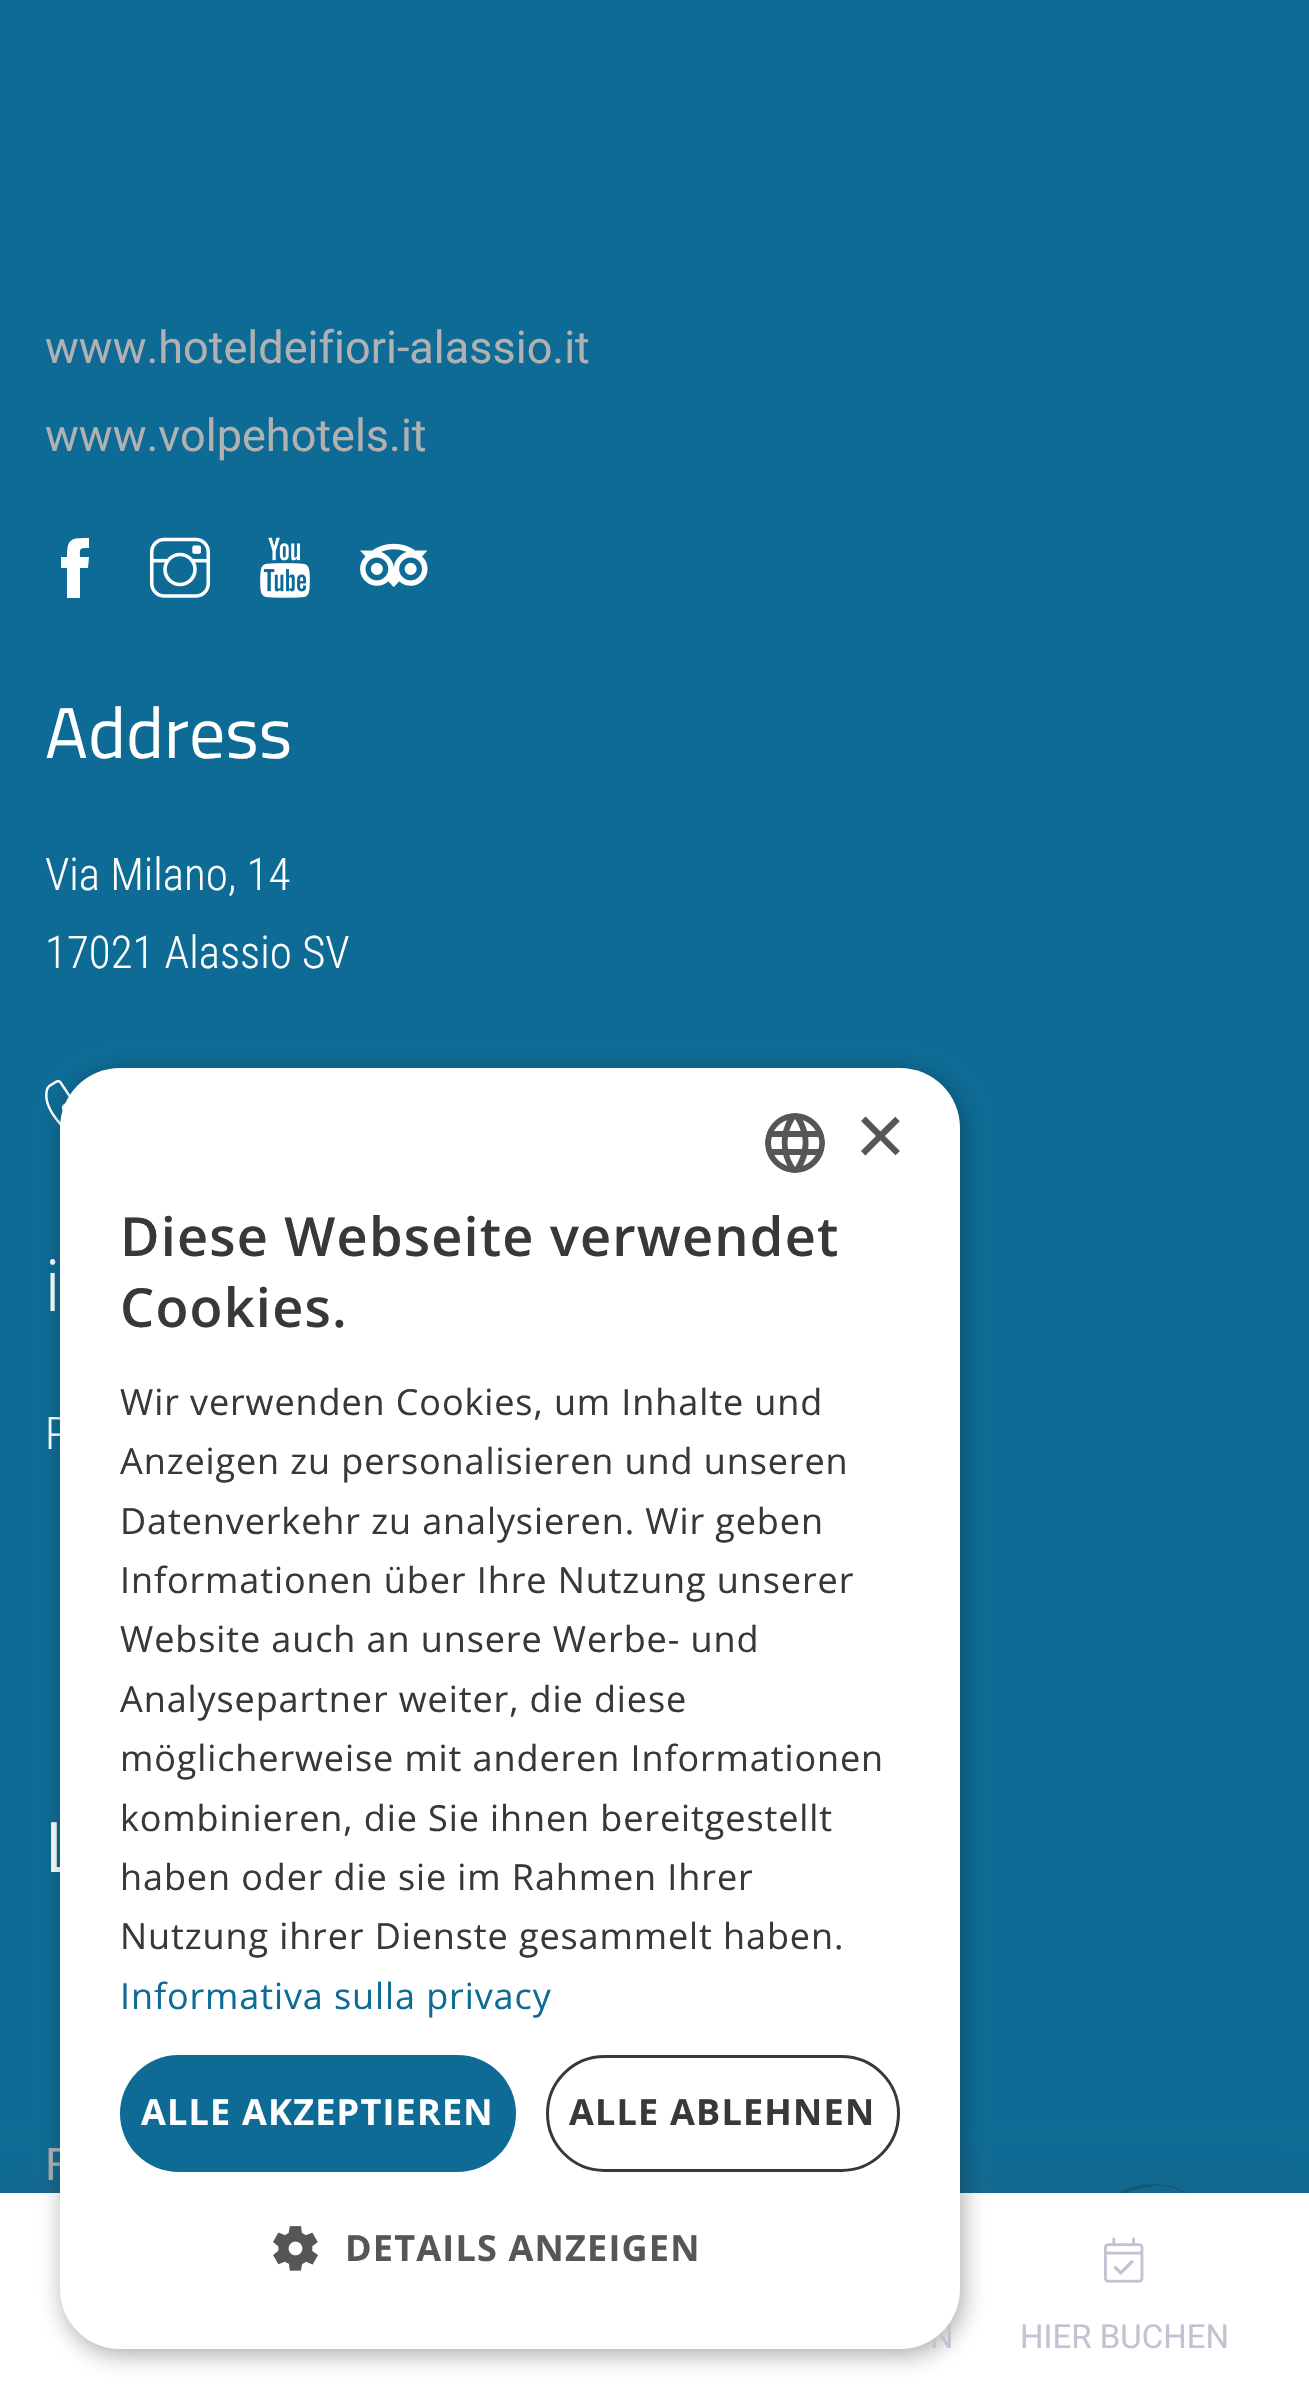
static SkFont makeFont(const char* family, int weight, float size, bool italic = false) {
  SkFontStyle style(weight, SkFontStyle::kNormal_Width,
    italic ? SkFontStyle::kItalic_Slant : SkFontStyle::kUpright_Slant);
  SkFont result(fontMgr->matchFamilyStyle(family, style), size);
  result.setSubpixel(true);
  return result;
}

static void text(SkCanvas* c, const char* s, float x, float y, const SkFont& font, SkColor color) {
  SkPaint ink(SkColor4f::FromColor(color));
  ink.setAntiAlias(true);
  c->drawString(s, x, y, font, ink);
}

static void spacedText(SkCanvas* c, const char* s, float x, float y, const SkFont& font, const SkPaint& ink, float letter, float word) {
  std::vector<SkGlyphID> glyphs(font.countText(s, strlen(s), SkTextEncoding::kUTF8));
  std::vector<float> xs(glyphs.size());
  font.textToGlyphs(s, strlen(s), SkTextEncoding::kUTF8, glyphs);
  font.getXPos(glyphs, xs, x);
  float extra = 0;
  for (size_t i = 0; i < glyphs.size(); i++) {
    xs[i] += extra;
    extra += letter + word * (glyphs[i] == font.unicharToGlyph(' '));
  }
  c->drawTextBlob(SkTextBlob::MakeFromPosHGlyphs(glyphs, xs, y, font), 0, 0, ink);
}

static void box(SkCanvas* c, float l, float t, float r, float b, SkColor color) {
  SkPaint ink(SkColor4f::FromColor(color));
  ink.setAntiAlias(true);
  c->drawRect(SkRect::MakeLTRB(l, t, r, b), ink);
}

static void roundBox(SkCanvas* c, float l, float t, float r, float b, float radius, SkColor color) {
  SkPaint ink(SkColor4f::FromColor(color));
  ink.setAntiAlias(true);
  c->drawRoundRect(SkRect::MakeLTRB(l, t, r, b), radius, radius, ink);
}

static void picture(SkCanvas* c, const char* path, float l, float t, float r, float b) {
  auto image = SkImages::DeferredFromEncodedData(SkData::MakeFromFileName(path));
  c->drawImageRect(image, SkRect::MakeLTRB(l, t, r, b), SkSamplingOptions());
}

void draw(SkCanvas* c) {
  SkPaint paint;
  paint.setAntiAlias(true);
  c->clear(0xff0d6b95);
  SkFont face1 = makeFont("Roboto", 400, 45);
  text(c, "www.hoteldeifiori-alassio.it", 45, 363, face1, 0xffb1b1b1);
  text(c, "www.volpehotels.it", 45, 451, face1, 0xffb1b1b1);
  paint.setColor(0xffffffff);
  c->drawPath(SkPathBuilder().moveTo(89, 557).lineTo(88, 568).lineTo(80, 568).lineTo(80, 598).lineTo(67, 598).lineTo(67, 568).lineTo(61, 568).lineTo(61, 557).lineTo(67, 557).cubicTo(67, 538, 71, 538, 89, 538).lineTo(89, 548).cubicTo(79, 548, 80, 548, 80, 557).close().detach(), paint);
  picture(c, "img_01.png", 150, 537, 210, 598);
  picture(c, "img_02.png", 260, 537, 310, 598);
  picture(c, "img_03.png", 360, 543, 428, 588);
  SkFont face2 = makeFont("Titillium Web", 400, 72);
  text(c, "Address", 45, 758, face2, 0xffffffff);
  SkFont face3 = makeFont("Roboto Condensed", 300, 45);
  text(c, "Via Milano, 14", 45, 890, face3, 0xffffffff);
  text(c, "17021 Alassio SV", 45, 968, face3, 0xffffffff);
  picture(c, "img_04.png", 45, 1080, 71, 1127);
  SkFont face4 = makeFont("Roboto Condensed", 300, 72);
  text(c, "i", 45, 1311, face4, 0xffffffff);
  text(c, "P", 45, 1449, face3, 0xffffffff);
  text(c, "L", 45, 1872, face2, 0xffffffff);
  text(c, "F", 45, 2180, face1, 0xffb1b1b1);
  paint.setStyle(SkPaint::kStroke_Style);
  paint.setStrokeWidth(3);
  paint.setColor(0xff0d5879);
  c->drawCircle(1153.5f, 2251.5f, 66, paint);
  paint.setStrokeWidth(2.6f);
  paint.setColor(0xff0d6b95);
  c->drawPath(SkPathBuilder().moveTo(1153.5f, 2186.5f).cubicTo(1189.5f, 2186.5f, 1218.5f, 2215.5f, 1218.5f, 2251.5f).cubicTo(1218.5f, 2287.5f, 1189.5f, 2316.5f, 1153.5f, 2316.5f).cubicTo(1117.5f, 2316.5f, 1088.5f, 2287.5f, 1088.5f, 2251.5f).cubicTo(1088.5f, 2229, 1100, 2209.5f, 1117.5f, 2197.5f).detach(), paint);
  paint.setStyle(SkPaint::kFill_Style);
  paint.setColor(0x334e4b57);
  paint.setMaskFilter(SkMaskFilter::MakeBlur(kNormal_SkBlurStyle, 22.5f));
  c->drawRect(SkRect::MakeLTRB(-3, 2190, 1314, 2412), paint);
  paint.setMaskFilter(nullptr);
  box(c, 0, 2193, 1309, 2407, 0xffffffff);
  paint.setColor(0x590d0d0d);
  paint.setMaskFilter(SkMaskFilter::MakeBlur(kNormal_SkBlurStyle, 12));
  c->drawRoundRect(SkRect::MakeLTRB(63, 1074, 963, 2355), 60, 60, paint);
  paint.setMaskFilter(nullptr);
  SkFont face5 = makeFont("Roboto", 400, 33);
  text(c, "N", 930, 2348, face5, 0xffc4c2d2);
  roundBox(c, 60, 1068, 960, 2349, 60, 0xffffffff);
  picture(c, "img_05.png", 765, 1113, 825, 1173);
  SkFont face6 = makeFont("Liberation Sans", 400, 87);
  text(c, "×", 855, 1165, face6, 0xff565656);
  SkFont face7 = makeFont("Open Sans", 600, 54);
  paint.setColor(0xff383838);
  spacedText(c, "Diese Webseite verwendet", 120, 1256, face7, paint, 1.2f, 0);
  spacedText(c, "Cookies.", 120, 1327, face7, paint, 1.2f, 0);
  SkFont face8 = makeFont("Open Sans", 400, 36);
  spacedText(c, "Wir verwenden Cookies, um Inhalte und", 120, 1415, face8, paint, 0.9f, 0);
  spacedText(c, "Anzeigen zu personalisieren und unseren", 120, 1474, face8, paint, 0.9f, 0);
  spacedText(c, "Datenverkehr zu analysieren. Wir geben", 120, 1534, face8, paint, 0.9f, 0);
  spacedText(c, "Informationen über Ihre Nutzung unserer", 120, 1593, face8, paint, 0.9f, 0);
  spacedText(c, "Website auch an unsere Werbe- und", 120, 1652, face8, paint, 0.9f, 0);
  spacedText(c, "Analysepartner weiter, die diese", 120, 1712, face8, paint, 0.9f, 0);
  spacedText(c, "möglicherweise mit anderen Informationen", 120, 1771, face8, paint, 0.9f, 0);
  spacedText(c, "kombinieren, die Sie ihnen bereitgestellt", 120, 1831, face8, paint, 0.9f, 0);
  spacedText(c, "haben oder die sie im Rahmen Ihrer", 120, 1890, face8, paint, 0.9f, 0);
  spacedText(c, "Nutzung ihrer Dienste gesammelt haben.", 120, 1949, face8, paint, 0.9f, 0);
  paint.setColor(0xff0d6b95);
  spacedText(c, "Informativa sulla privacy", 120, 2009, face8, paint, 0.9f, 0);
  roundBox(c, 120, 2055, 516, 2172, 58.5f, 0xff0d6b95);
  SkFont face9 = makeFont("Open Sans", 700, 36);
  paint.setColor(0xffffffff);
  spacedText(c, "ALLE AKZEPTIEREN", 141, 2125, face9, paint, 1.2f, 0);
  paint.setStyle(SkPaint::kStroke_Style);
  paint.setStrokeWidth(3);
  paint.setColor(0xff383838);
  c->drawRoundRect(SkRect::MakeLTRB(547.5f, 2056.5f, 898.5f, 2170.5f), 57, 57, paint);
  paint.setStyle(SkPaint::kFill_Style);
  spacedText(c, "ALLE ABLEHNEN", 569, 2125, face9, paint, 1.2f, 0);
  picture(c, "img_06.png", 273, 2226, 318, 2271);
  paint.setColor(0xff565656);
  spacedText(c, "DETAILS ANZEIGEN", 345, 2261, face9, paint, 1.2f, 0);
  picture(c, "img_07.png", 1104, 2237, 1144, 2283);
  text(c, "HIER BUCHEN", 1020, 2348, face5, 0xffc4c2d2);
}
